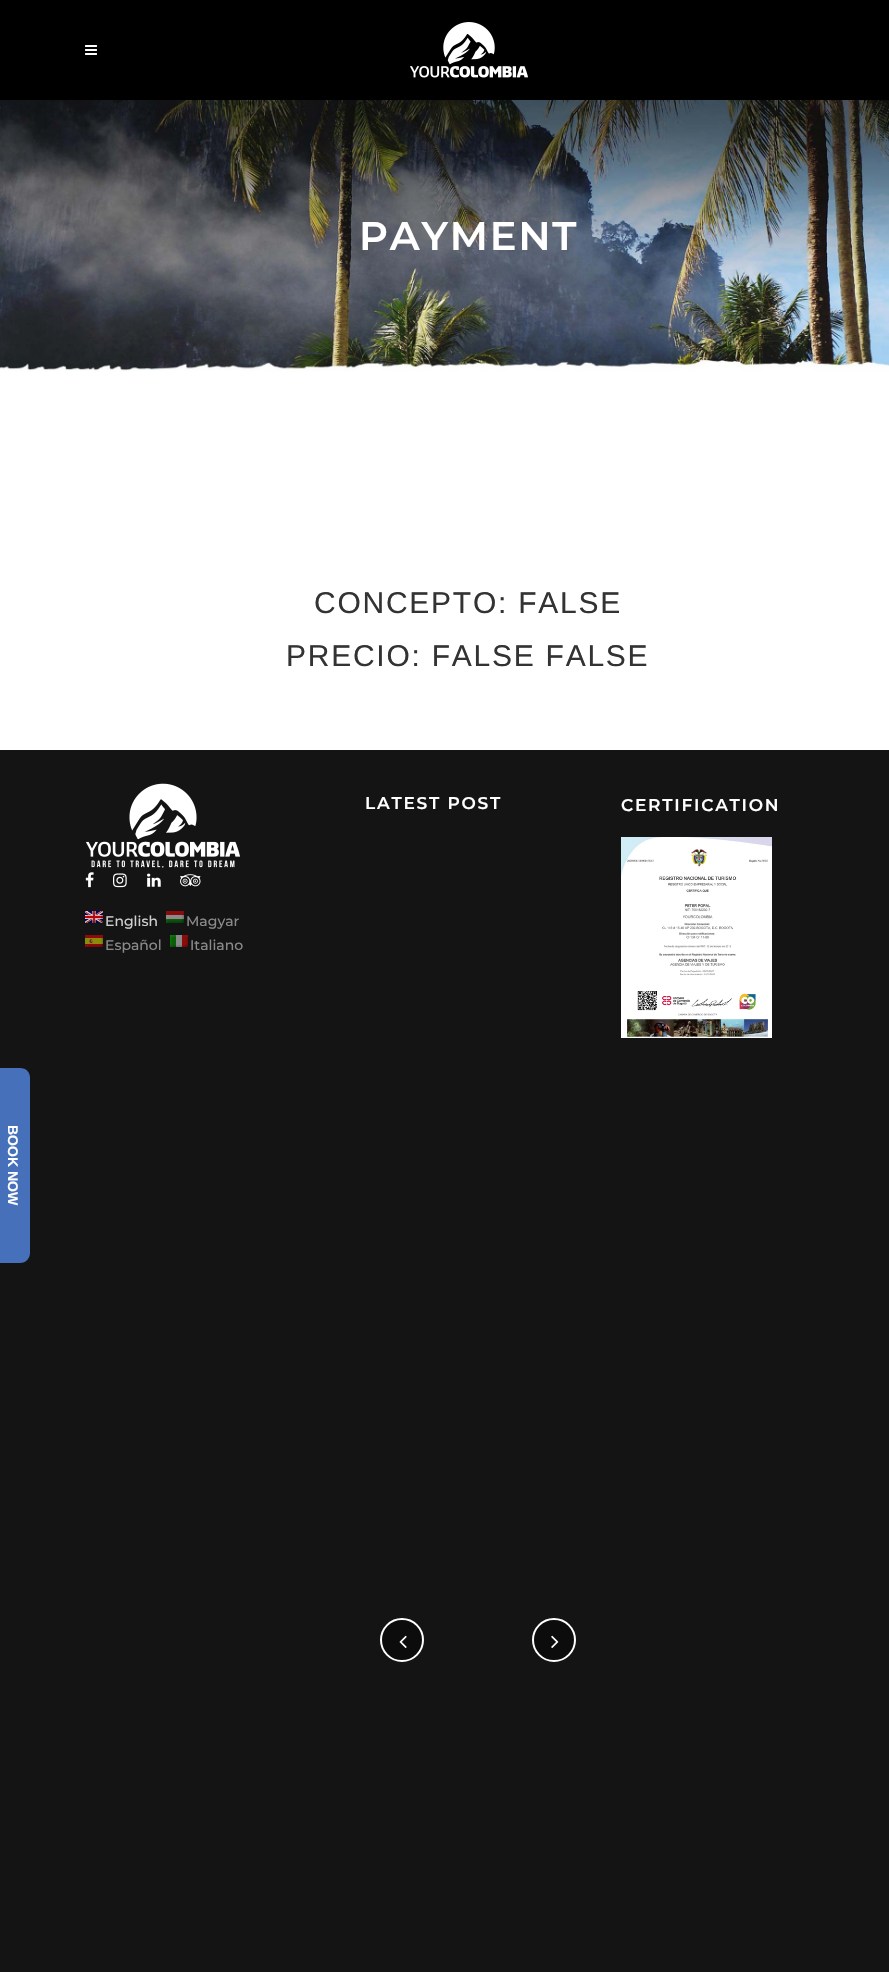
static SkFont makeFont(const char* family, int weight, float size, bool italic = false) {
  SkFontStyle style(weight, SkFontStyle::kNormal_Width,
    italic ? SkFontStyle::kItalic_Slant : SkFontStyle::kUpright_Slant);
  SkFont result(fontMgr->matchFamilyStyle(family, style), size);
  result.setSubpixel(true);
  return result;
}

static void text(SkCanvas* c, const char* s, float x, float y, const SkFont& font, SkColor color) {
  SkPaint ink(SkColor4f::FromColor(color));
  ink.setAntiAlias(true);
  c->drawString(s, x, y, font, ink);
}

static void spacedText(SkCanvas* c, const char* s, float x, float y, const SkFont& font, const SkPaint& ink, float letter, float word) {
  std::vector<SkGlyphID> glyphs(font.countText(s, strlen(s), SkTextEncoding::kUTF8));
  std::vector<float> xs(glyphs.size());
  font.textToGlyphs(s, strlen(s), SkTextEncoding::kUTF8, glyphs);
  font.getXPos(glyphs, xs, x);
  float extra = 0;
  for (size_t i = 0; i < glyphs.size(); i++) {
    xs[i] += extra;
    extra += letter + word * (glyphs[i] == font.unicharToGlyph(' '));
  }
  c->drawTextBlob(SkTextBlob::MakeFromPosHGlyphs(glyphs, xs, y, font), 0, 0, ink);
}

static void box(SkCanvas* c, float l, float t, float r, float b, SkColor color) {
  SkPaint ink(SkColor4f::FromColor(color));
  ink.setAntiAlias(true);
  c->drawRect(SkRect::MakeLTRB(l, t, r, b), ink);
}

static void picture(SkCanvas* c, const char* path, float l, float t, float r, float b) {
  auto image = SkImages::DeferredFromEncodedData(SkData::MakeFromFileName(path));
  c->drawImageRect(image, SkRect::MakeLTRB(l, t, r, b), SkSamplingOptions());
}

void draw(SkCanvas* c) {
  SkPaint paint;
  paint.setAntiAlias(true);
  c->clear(0xffffffff);
  box(c, 0, 0, 889, 100, 0xff000000);
  picture(c, "img_01.png", 85, 45, 97, 55);
  picture(c, "img_02.png", 410, 22, 528, 78);
  picture(c, "img_03.png", 0, 100, 889, 372);
  SkFont face1 = makeFont("Montserrat", 600, 40);
  paint.setColor(0xffffffff);
  spacedText(c, "PAYMENT", 359, 250, face1, paint, 1.75f, 0);
  SkFont face2 = makeFont("Liberation Sans", 400, 30);
  paint.setColor(0xff333333);
  spacedText(c, "CONCEPTO: FALSE", 314, 613, face2, paint, 1.75f, 0);
  spacedText(c, "PRECIO: FALSE FALSE", 286, 666, face2, paint, 1.75f, 0);
  box(c, 0, 750, 889, 1972, 0xff151414);
  SkFont face3 = makeFont("Montserrat", 600, 17);
  paint.setColor(0xffffffff);
  spacedText(c, "LATEST POST", 365, 809, face3, paint, 1.75f, 0);
  paint.setColor(0xff0d0c0c);
  c->drawCircle(402, 1640, 21, paint);
  paint.setStyle(SkPaint::kStroke_Style);
  paint.setStrokeWidth(2);
  paint.setColor(0xffffffff);
  c->drawCircle(402, 1640, 21, paint);
  picture(c, "img_04.png", 399, 1635, 407, 1648);
  paint.setStyle(SkPaint::kFill_Style);
  paint.setColor(0xff0d0c0c);
  c->drawCircle(554, 1640, 21, paint);
  paint.setStyle(SkPaint::kStroke_Style);
  paint.setColor(0xffffffff);
  c->drawCircle(554, 1640, 21, paint);
  picture(c, "img_05.png", 551, 1635, 559, 1648);
  paint.setStyle(SkPaint::kFill_Style);
  spacedText(c, "CERTIFICATION", 621, 811, face3, paint, 1.75f, 0);
  picture(c, "img_06.png", 621, 837, 772, 1038);
  picture(c, "img_07.png", 86, 783, 240, 868);
  picture(c, "img_08.png", 85, 872, 94, 888);
  picture(c, "img_09.png", 113, 873, 127, 888);
  picture(c, "img_10.png", 147, 873, 161, 887);
  picture(c, "img_11.png", 180, 874, 201, 887);
  picture(c, "img_12.png", 85, 911, 103, 923);
  SkFont face4 = makeFont("Montserrat", 500, 14);
  text(c, "English", 105, 926, face4, 0xffd0d0d0);
  picture(c, "img_13.png", 166, 911, 184, 923);
  text(c, "Magyar", 186, 926, face4, 0xff8a8a8a);
  picture(c, "img_14.png", 85, 935, 103, 947);
  text(c, "Español", 105, 950, face4, 0xff8a8a8a);
  picture(c, "img_15.png", 170, 935, 188, 947);
  text(c, "Italiano", 190, 950, face4, 0xff8a8a8a);
  paint.setColor(0xff4670ba);
  c->drawPath(SkPathBuilder().moveTo(30, 1078).lineTo(30, 1253).cubicTo(30, 1258, 26, 1263, 20, 1263).lineTo(-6, 1263).lineTo(-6, 1068).lineTo(20, 1068).cubicTo(26, 1068, 30, 1072, 30, 1078).close().detach(), paint);
  SkFont face5 = makeFont("Liberation Sans", 700, 14);
  c->save();
  c->rotate(90, 8, 1125);
  text(c, "BOOK NOW", 8, 1125, face5, 0xffffffff);
  c->restore();
}
